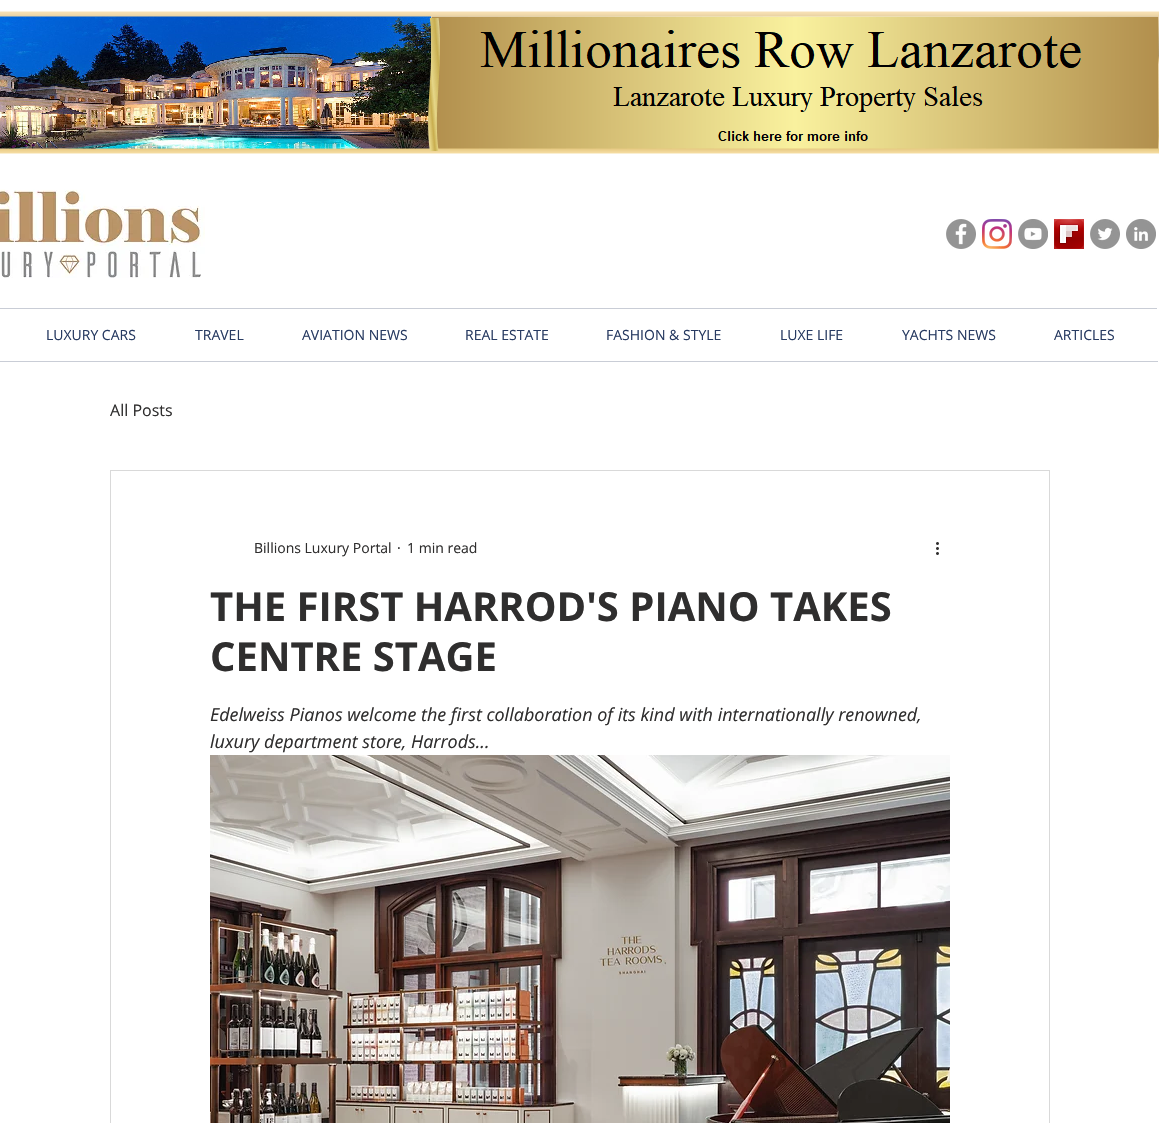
static SkFont makeFont(const char* family, int weight, float size, bool italic = false) {
  SkFontStyle style(weight, SkFontStyle::kNormal_Width,
    italic ? SkFontStyle::kItalic_Slant : SkFontStyle::kUpright_Slant);
  SkFont result(fontMgr->matchFamilyStyle(family, style), size);
  result.setSubpixel(true);
  return result;
}

static void text(SkCanvas* c, const char* s, float x, float y, const SkFont& font, SkColor color) {
  SkPaint ink(SkColor4f::FromColor(color));
  ink.setAntiAlias(true);
  c->drawString(s, x, y, font, ink);
}

static void box(SkCanvas* c, float l, float t, float r, float b, SkColor color) {
  SkPaint ink(SkColor4f::FromColor(color));
  ink.setAntiAlias(true);
  c->drawRect(SkRect::MakeLTRB(l, t, r, b), ink);
}

static void picture(SkCanvas* c, const char* path, float l, float t, float r, float b) {
  auto image = SkImages::DeferredFromEncodedData(SkData::MakeFromFileName(path));
  c->drawImageRect(image, SkRect::MakeLTRB(l, t, r, b), SkSamplingOptions());
}

void draw(SkCanvas* c) {
  SkPaint paint;
  paint.setAntiAlias(true);
  c->clear(0xffffffff);
  picture(c, "img_01.png", 0, 11, 1159, 154);
  picture(c, "img_02.png", 0, 189, 205, 278);
  picture(c, "img_03.png", 946, 219, 976, 249);
  picture(c, "img_04.png", 982, 219, 1012, 249);
  picture(c, "img_05.png", 1018, 219, 1048, 249);
  picture(c, "img_06.png", 1054, 219, 1084, 249);
  picture(c, "img_07.png", 1090, 219, 1120, 249);
  picture(c, "img_08.png", 1126, 219, 1156, 249);
  box(c, 0, 308, 1157, 309, 0xffc9cdd6);
  SkFont face1 = makeFont("Open Sans", 400, 14);
  text(c, "LUXURY CARS", 46, 340, face1, 0xff283b62);
  text(c, "TRAVEL", 195, 340, face1, 0xff283b62);
  text(c, "AVIATION NEWS", 302, 340, face1, 0xff283b62);
  text(c, "REAL ESTATE", 465, 340, face1, 0xff283b62);
  text(c, "FASHION & STYLE", 606, 340, face1, 0xff283b62);
  text(c, "LUXE LIFE", 780, 340, face1, 0xff283b62);
  text(c, "YACHTS NEWS", 902, 340, face1, 0xff283b62);
  text(c, "ARTICLES", 1054, 340, face1, 0xff283b62);
  box(c, 0, 361, 1158, 362, 0xffc9cdd6);
  SkFont face2 = makeFont("Open Sans", 400, 16);
  text(c, "All Posts", 110, 416, face2, 0xff2f2e2e);
  paint.setStyle(SkPaint::kStroke_Style);
  paint.setStrokeWidth(1);
  paint.setColor(0xffd9d9d9);
  c->drawRect(SkRect::MakeLTRB(110.5f, 470.5f, 1049.5f, 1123.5f), paint);
  text(c, "Billions Luxury Portal", 254, 553, face1, 0xff2f2e2e);
  text(c, "·", 397, 553, face1, 0xff2f2e2e);
  text(c, "1 min read", 407, 553, face1, 0xff2f2e2e);
  picture(c, "img_09.png", 936, 542, 939, 555);
  SkFont face3 = makeFont("Open Sans", 700, 40);
  text(c, "THE FIRST HARROD'S PIANO TAKES", 210, 621, face3, 0xff2f2e2e);
  text(c, "CENTRE STAGE", 210, 671, face3, 0xff2f2e2e);
  SkFont face4 = makeFont("Open Sans", 400, 18, true);
  text(c, "Edelweiss Pianos welcome the first collaboration of its kind with internationally renowned,", 210, 721, face4, 0xff2f2e2e);
  text(c, "luxury department store, Harrods...", 210, 748, face4, 0xff2f2e2e);
  picture(c, "img_10.png", 210, 755, 950, 1123);
}
